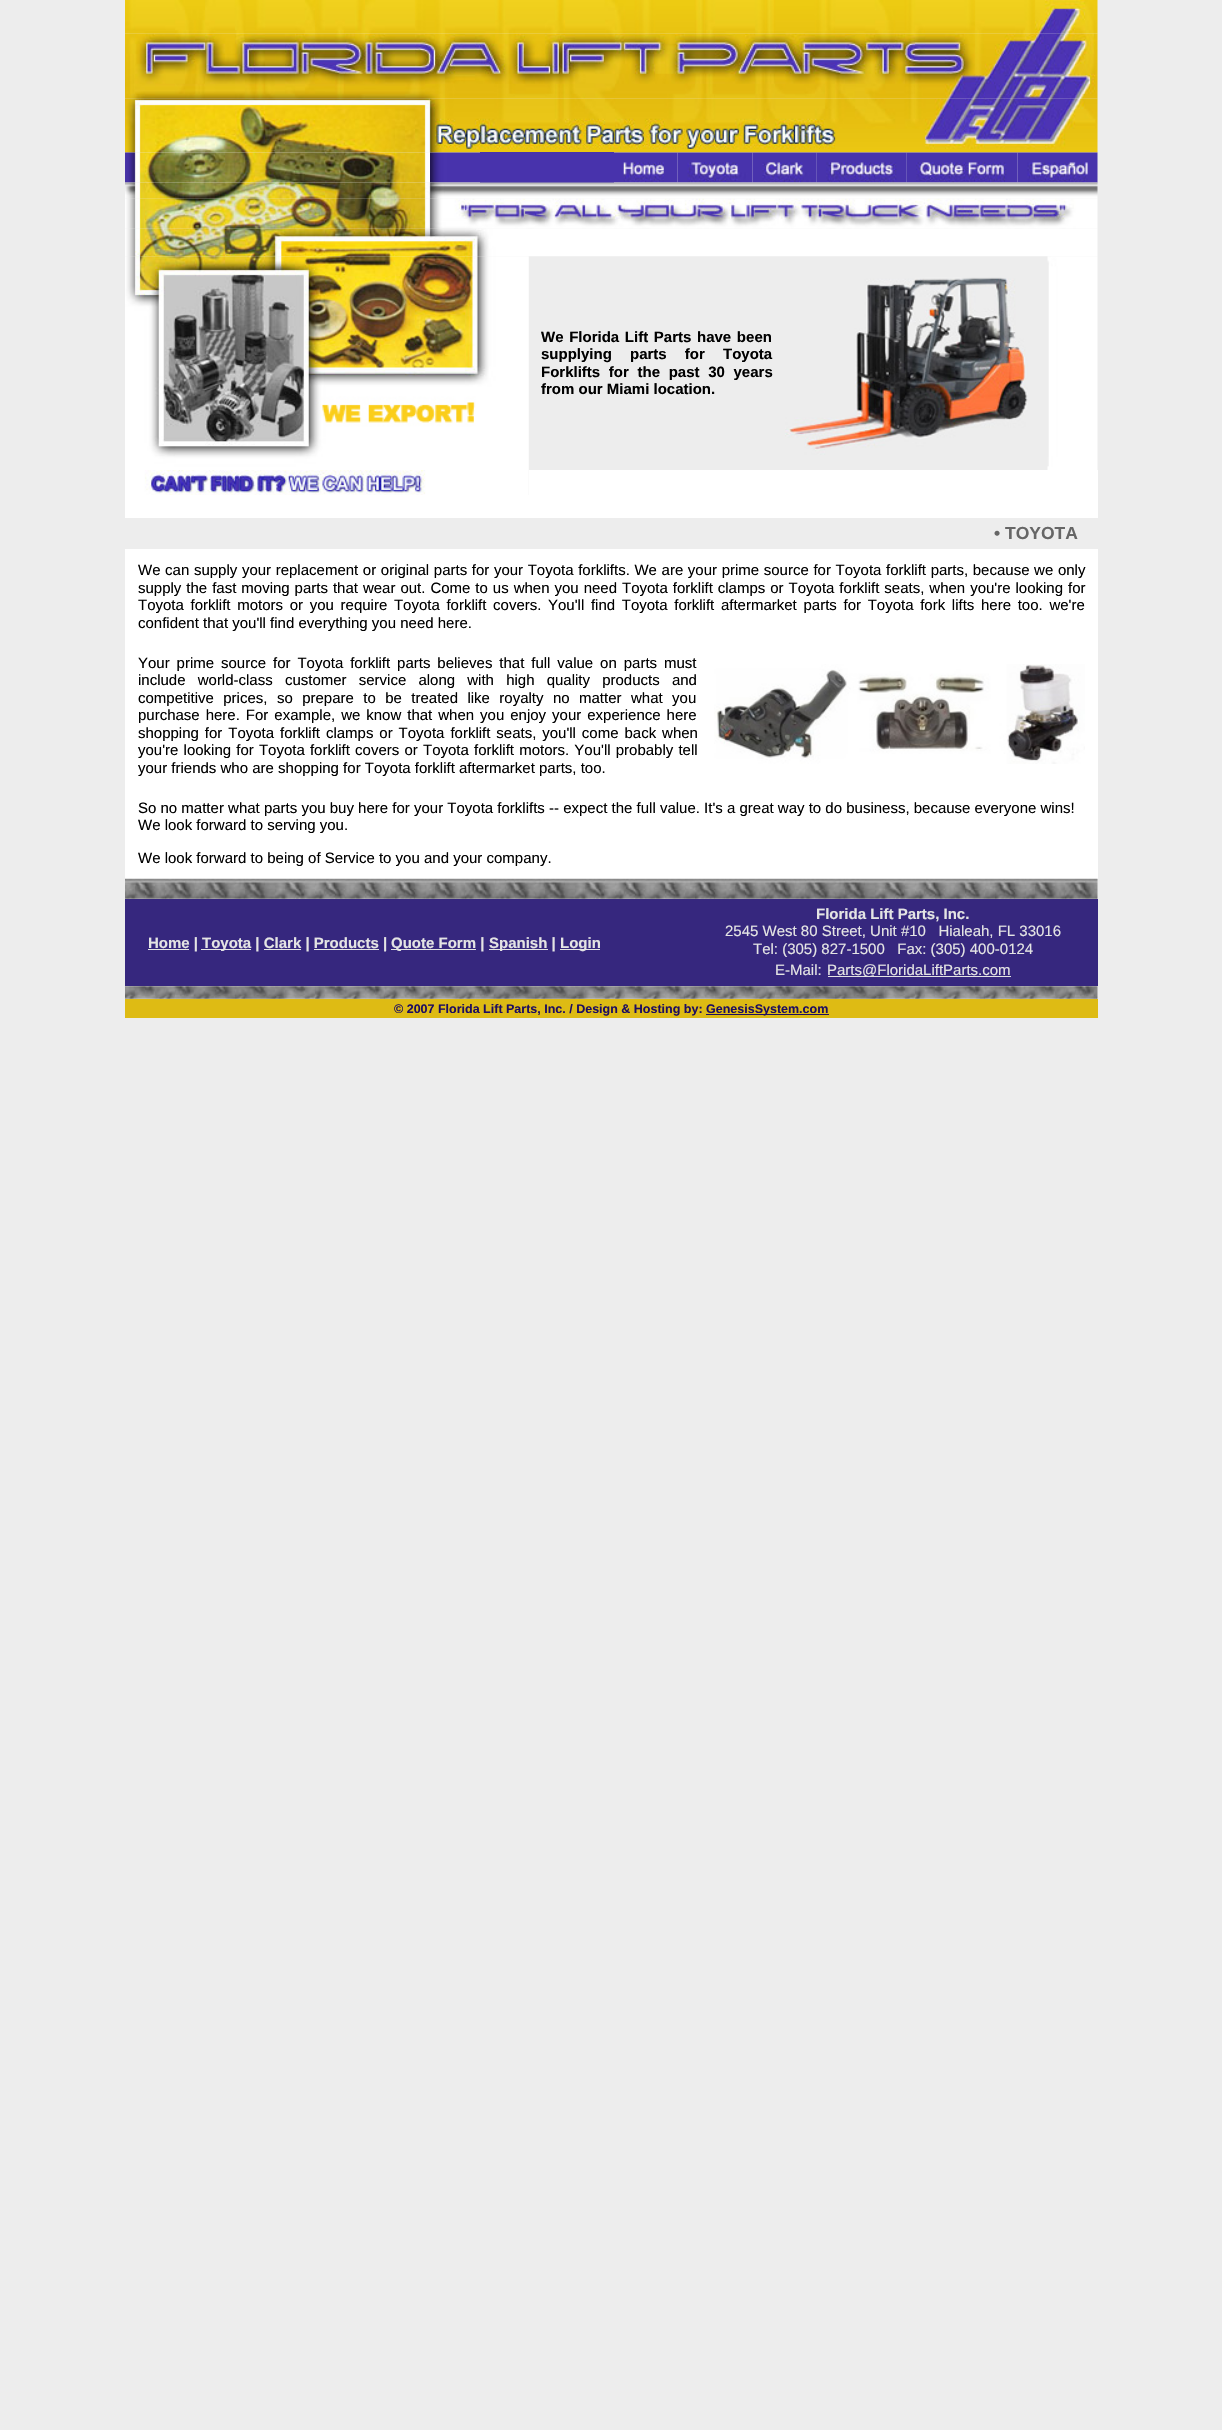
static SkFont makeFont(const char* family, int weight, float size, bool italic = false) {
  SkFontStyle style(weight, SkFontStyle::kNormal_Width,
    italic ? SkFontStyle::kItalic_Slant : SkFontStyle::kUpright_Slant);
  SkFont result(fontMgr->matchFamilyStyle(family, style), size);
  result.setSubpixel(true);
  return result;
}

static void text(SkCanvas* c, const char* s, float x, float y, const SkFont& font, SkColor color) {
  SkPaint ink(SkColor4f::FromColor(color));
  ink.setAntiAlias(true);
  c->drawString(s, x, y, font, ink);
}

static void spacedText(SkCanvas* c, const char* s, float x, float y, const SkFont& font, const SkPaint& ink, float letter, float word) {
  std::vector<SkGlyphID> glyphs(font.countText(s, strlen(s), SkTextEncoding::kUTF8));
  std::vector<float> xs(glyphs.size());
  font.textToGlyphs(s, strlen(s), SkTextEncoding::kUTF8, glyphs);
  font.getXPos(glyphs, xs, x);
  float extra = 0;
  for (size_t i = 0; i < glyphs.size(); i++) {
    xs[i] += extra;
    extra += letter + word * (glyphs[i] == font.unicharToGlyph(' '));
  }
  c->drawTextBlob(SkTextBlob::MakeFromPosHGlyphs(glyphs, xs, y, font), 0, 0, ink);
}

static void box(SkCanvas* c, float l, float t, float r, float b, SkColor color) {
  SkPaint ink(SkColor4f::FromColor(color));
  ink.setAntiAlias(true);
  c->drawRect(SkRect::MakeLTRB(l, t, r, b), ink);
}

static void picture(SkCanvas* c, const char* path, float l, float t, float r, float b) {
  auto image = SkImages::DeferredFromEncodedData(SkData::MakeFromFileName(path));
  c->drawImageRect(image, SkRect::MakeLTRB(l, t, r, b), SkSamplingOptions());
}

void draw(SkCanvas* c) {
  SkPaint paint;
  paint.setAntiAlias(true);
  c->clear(0xffededed);
  picture(c, "img_01.png", 125, 0, 1098, 34);
  picture(c, "img_02.png", 125, 33, 1098, 99);
  picture(c, "img_03.png", 125, 98, 1098, 153);
  picture(c, "img_04.png", 125, 152, 430, 183);
  picture(c, "img_05.png", 430, 152, 480, 183);
  box(c, 480, 152, 614, 183, 0xff4833ac);
  picture(c, "img_06.png", 614, 152, 678, 183);
  picture(c, "img_07.png", 677, 152, 753, 183);
  picture(c, "img_08.png", 752, 152, 817, 183);
  picture(c, "img_09.png", 816, 152, 907, 183);
  picture(c, "img_10.png", 906, 152, 1018, 183);
  picture(c, "img_11.png", 1017, 152, 1098, 183);
  picture(c, "img_12.png", 125, 182, 1098, 199);
  picture(c, "img_13.png", 125, 198, 1098, 229);
  picture(c, "img_14.png", 125, 228, 1098, 257);
  picture(c, "img_15.png", 125, 256, 529, 470);
  SkFont face1 = makeFont("Liberation Sans", 700, 15);
  paint.setColor(0xff000000);
  spacedText(c, "We Florida Lift Parts have been", 541, 342, face1, paint, 0, 1.5f);
  spacedText(c, "supplying parts for Toyota", 541, 359, face1, paint, 0, 14);
  spacedText(c, "Forklifts for the past 30 years", 541, 377, face1, paint, 0, 4.5f);
  text(c, "from our Miami location.", 541, 394, face1, 0xff000000);
  picture(c, "img_16.png", 785, 277, 1028, 455);
  picture(c, "img_17.png", 1047, 256, 1098, 470);
  picture(c, "img_18.png", 125, 470, 529, 495);
  box(c, 529, 470, 1098, 495, 0xffffffff);
  box(c, 125, 495, 1098, 879, 0xffffffff);
  box(c, 125, 518, 1098, 549, 0xffededed);
  SkFont face2 = makeFont("Liberation Sans", 700, 17.5f);
  text(c, "• TOYOTA", 994, 539, face2, 0xff666666);
  SkFont face3 = makeFont("Liberation Sans", 400, 15);
  spacedText(c, "We can supply your replacement or original parts for your Toyota forklifts. We are your prime source for Toyota forklift parts, because we only", 138, 575, face3, paint, 0, 0.45f);
  spacedText(c, "supply the fast moving parts that wear out. Come to us when you need Toyota forklift clamps or Toyota forklift seats, when you're looking for", 138, 593, face3, paint, 0, 0.8f);
  spacedText(c, "Toyota forklift motors or you require Toyota forklift covers.", 138, 610, face3, paint, 0, 2.5f);
  spacedText(c, "You'll find Toyota forklift aftermarket parts for Toyota fork lifts here too. we're", 548, 610, face3, paint, 0, 2.5f);
  text(c, "confident that you'll find everything you need here.", 138, 628, face3, 0xff000000);
  spacedText(c, "Your prime source for Toyota forklift parts believes that full value on parts must", 138, 668, face3, paint, 0, 2.75f);
  spacedText(c, "include world-class customer service along with high quality products and", 138, 685, face3, paint, 0, 8);
  spacedText(c, "competitive prices, so prepare to be treated like royalty no matter what you", 138, 703, face3, paint, 0, 5.25f);
  spacedText(c, "purchase here. For example, we know that when you enjoy your experience here", 138, 720, face3, paint, 0, 1.8f);
  spacedText(c, "shopping for Toyota forklift clamps or Toyota forklift seats, you'll come back when", 138, 738, face3, paint, 0, 1.75f);
  spacedText(c, "you're looking for Toyota forklift covers or Toyota forklift motors. You'll probably tell", 138, 755, face3, paint, 0, 1);
  text(c, "your friends who are shopping for Toyota forklift aftermarket parts, too.", 138, 773, face3, 0xff000000);
  picture(c, "img_19.png", 714, 664, 1085, 764);
  text(c, "So no matter what parts you buy here for your Toyota forklifts -- expect the full value. It's a great way to do business, because everyone wins!", 138, 813, face3, 0xff000000);
  text(c, "We look forward to serving you.", 138, 830, face3, 0xff000000);
  text(c, "We look forward to being of Service to you and your company.", 138, 863, face3, 0xff000000);
  picture(c, "img_20.png", 125, 878, 1098, 899);
  box(c, 125, 899, 1098, 986, 0xff36277e);
  box(c, 148, 949, 189, 950, 0xffe4e4e4);
  text(c, "Home |", 148, 948, face1, 0xffe4e4e4);
  box(c, 201, 949, 251, 950, 0xffe4e4e4);
  text(c, "Toyota | Clark | Products |", 202, 948, face1, 0xffe4e4e4);
  box(c, 264, 949, 301, 950, 0xffe4e4e4);
  box(c, 314, 949, 379, 950, 0xffe4e4e4);
  box(c, 391, 949, 476, 950, 0xffe4e4e4);
  text(c, "Quote Form |", 391, 948, face1, 0xffe4e4e4);
  box(c, 489, 949, 548, 950, 0xffe4e4e4);
  text(c, "Spanish |", 489, 948, face1, 0xffe4e4e4);
  box(c, 560, 949, 600, 950, 0xffe4e4e4);
  text(c, "Login", 560, 948, face1, 0xffe4e4e4);
  text(c, "Florida Lift Parts, Inc.", 816, 919, face1, 0xffe4e4e4);
  text(c, "2545 West 80 Street, Unit #10   Hialeah, FL 33016", 725, 936, face3, 0xffe4e4e4);
  text(c, "Tel: (305) 827-1500   Fax: (305) 400-0124", 753, 954, face3, 0xffe4e4e4);
  text(c, "E-Mail:", 775, 975, face3, 0xffe4e4e4);
  box(c, 828, 976, 1011, 977, 0xffe4e4e4);
  text(c, "Parts@FloridaLiftParts.com", 827, 975, face3, 0xffe4e4e4);
  picture(c, "img_21.png", 125, 986, 1098, 999);
  box(c, 125, 999, 1098, 1018, 0xffdebb14);
  SkFont face4 = makeFont("Liberation Sans", 700, 12.5f);
  text(c, "© 2007 Florida Lift Parts, Inc. / Design & Hosting by:", 394, 1013, face4, 0xff1d0d60);
  box(c, 706, 1014, 829, 1015, 0xff1d0d60);
  text(c, "GenesisSystem.com", 706, 1013, face4, 0xff1d0d60);
}
